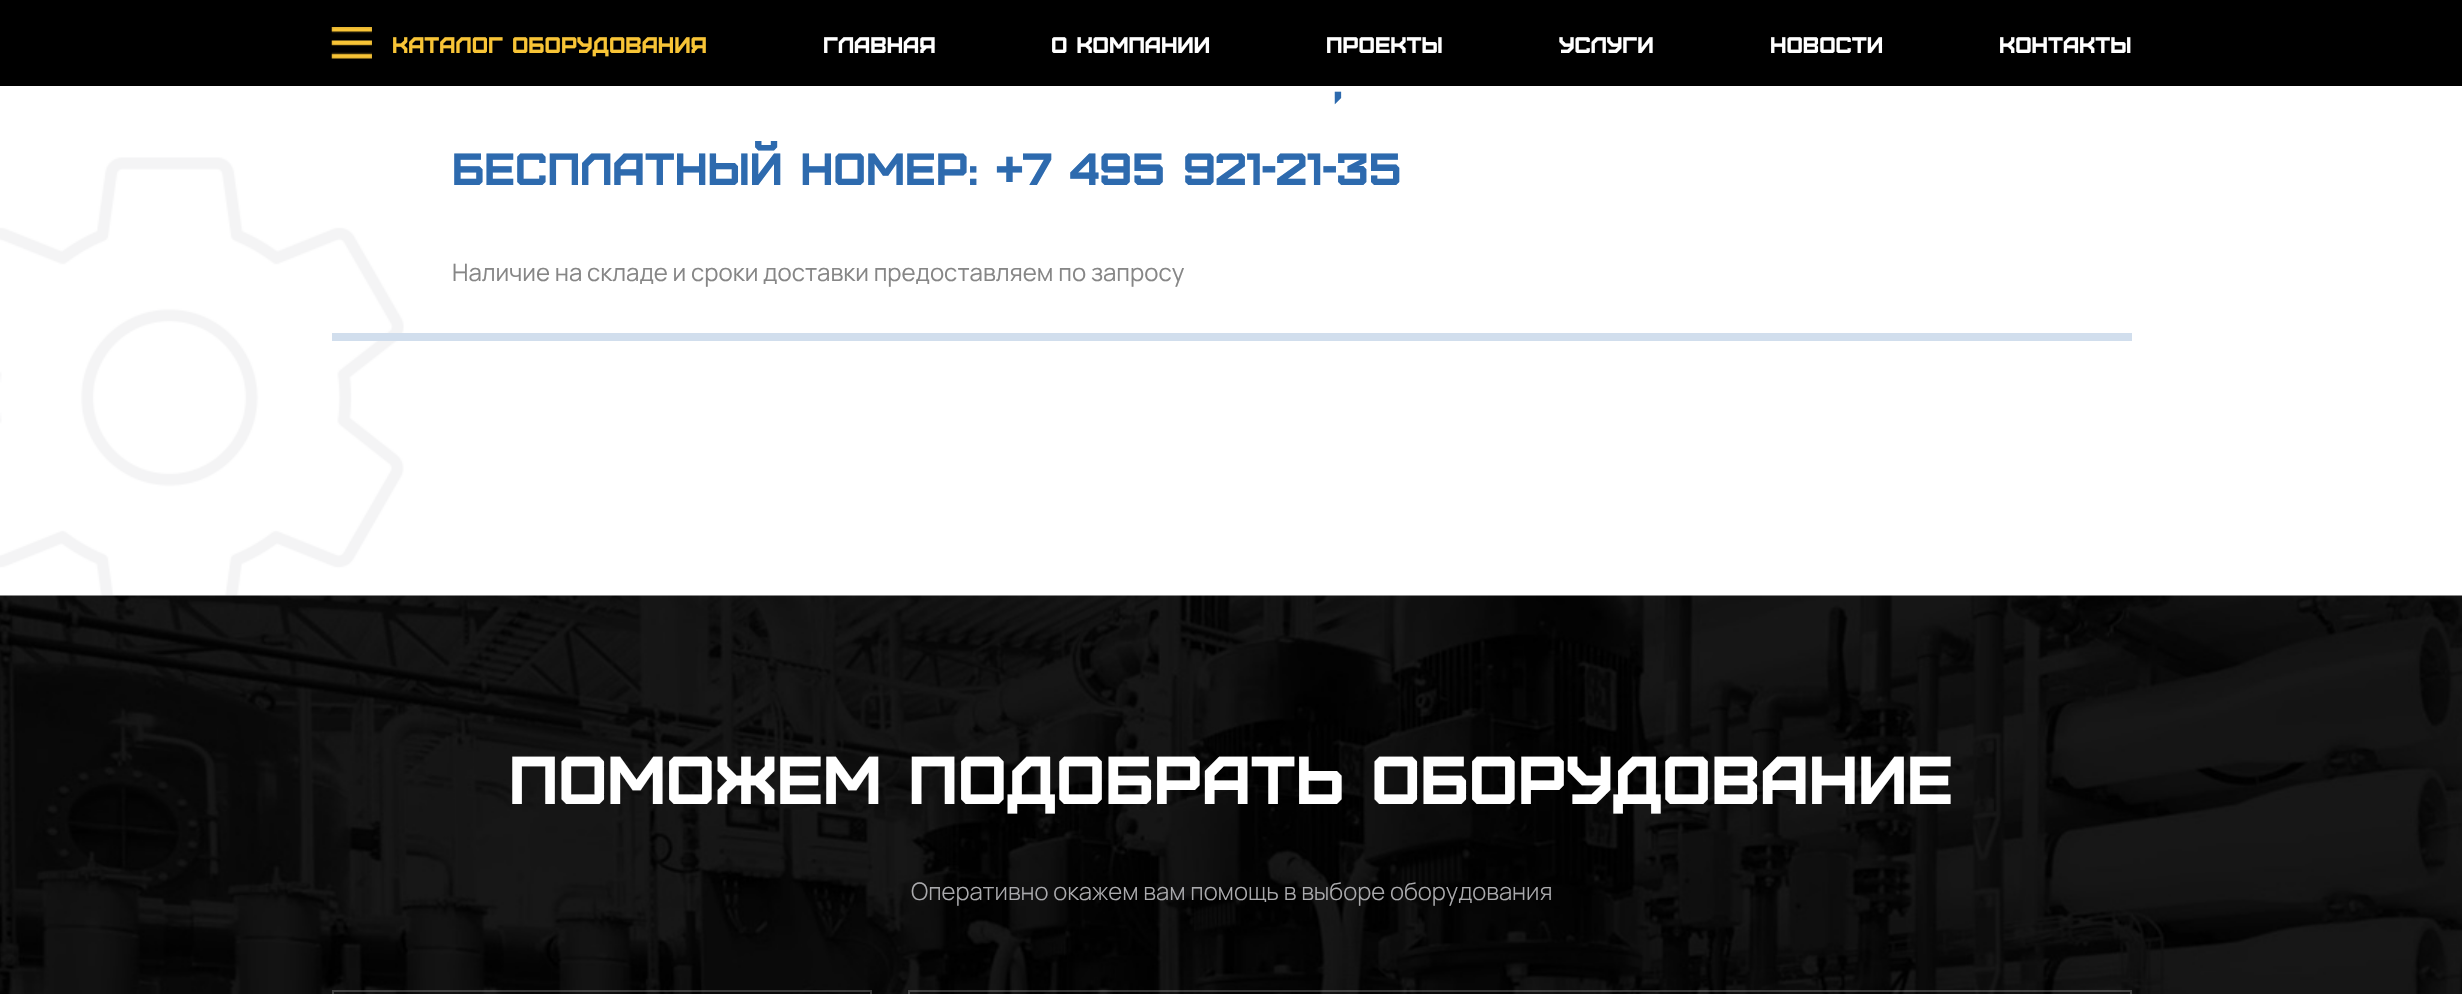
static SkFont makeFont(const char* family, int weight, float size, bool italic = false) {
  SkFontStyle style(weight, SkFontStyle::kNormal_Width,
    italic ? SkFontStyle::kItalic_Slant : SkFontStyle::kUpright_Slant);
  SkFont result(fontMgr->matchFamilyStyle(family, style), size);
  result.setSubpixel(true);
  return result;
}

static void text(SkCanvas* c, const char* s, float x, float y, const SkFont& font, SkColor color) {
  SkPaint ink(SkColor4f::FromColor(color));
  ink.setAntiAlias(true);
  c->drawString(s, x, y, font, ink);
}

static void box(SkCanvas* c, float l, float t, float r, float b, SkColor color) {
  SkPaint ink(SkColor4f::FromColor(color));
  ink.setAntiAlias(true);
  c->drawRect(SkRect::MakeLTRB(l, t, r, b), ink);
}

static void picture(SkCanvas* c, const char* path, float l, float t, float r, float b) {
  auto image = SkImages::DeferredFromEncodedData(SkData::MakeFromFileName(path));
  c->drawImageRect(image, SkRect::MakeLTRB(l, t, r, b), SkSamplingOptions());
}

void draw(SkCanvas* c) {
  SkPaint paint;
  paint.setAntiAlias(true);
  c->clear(0xffffffff);
  box(c, 0, 0, 2462, 86, 0xff000000);
  picture(c, "img_01.png", 331, 27, 372, 59);
  SkFont face1 = makeFont("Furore", 400, 22.5f);
  text(c, "каталог оборудования", 392, 53, face1, 0xfff8c436);
  text(c, "главная", 823, 53, face1, 0xffffffff);
  text(c, "о компании", 1051, 53, face1, 0xffffffff);
  text(c, "проекты", 1326, 53, face1, 0xffffffff);
  text(c, "услуги", 1559, 53, face1, 0xffffffff);
  text(c, "новости", 1770, 53, face1, 0xffffffff);
  text(c, "контакты", 1999, 53, face1, 0xffffffff);
  picture(c, "img_02.png", 0, 157, 404, 596);
  box(c, 332, 333, 2132, 341, 0xffd1deed);
  SkFont face2 = makeFont("Furore", 400, 45);
  text(c, ",", 1333, 98, face2, 0xff2d6aae);
  text(c, "Бесплатный номер: +7 495 921-21-35", 452, 185, face2, 0xff2d6aae);
  SkFont face3 = makeFont("Manrope", 400, 24);
  text(c, "Наличие на складе и сроки доставки предоставляем по запросу", 452, 281, face3, 0xff868686);
  picture(c, "img_03.png", 0, 595, 2462, 994);
  SkFont face4 = makeFont("Furore", 400, 67.5f);
  text(c, "Поможем подобрать оборудование", 509, 804, face4, 0xffffffff);
  SkFont face5 = makeFont("Manrope", 300, 24);
  text(c, "Оперативно окажем вам помощь в выборе оборудования", 911, 900, face5, 0xffababae);
  paint.setStyle(SkPaint::kStroke_Style);
  paint.setStrokeWidth(2);
  paint.setColor(0x33ffffff);
  c->drawRect(SkRect::MakeLTRB(333, 991, 871, 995), paint);
  c->drawRect(SkRect::MakeLTRB(909, 991, 2131, 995), paint);
}
